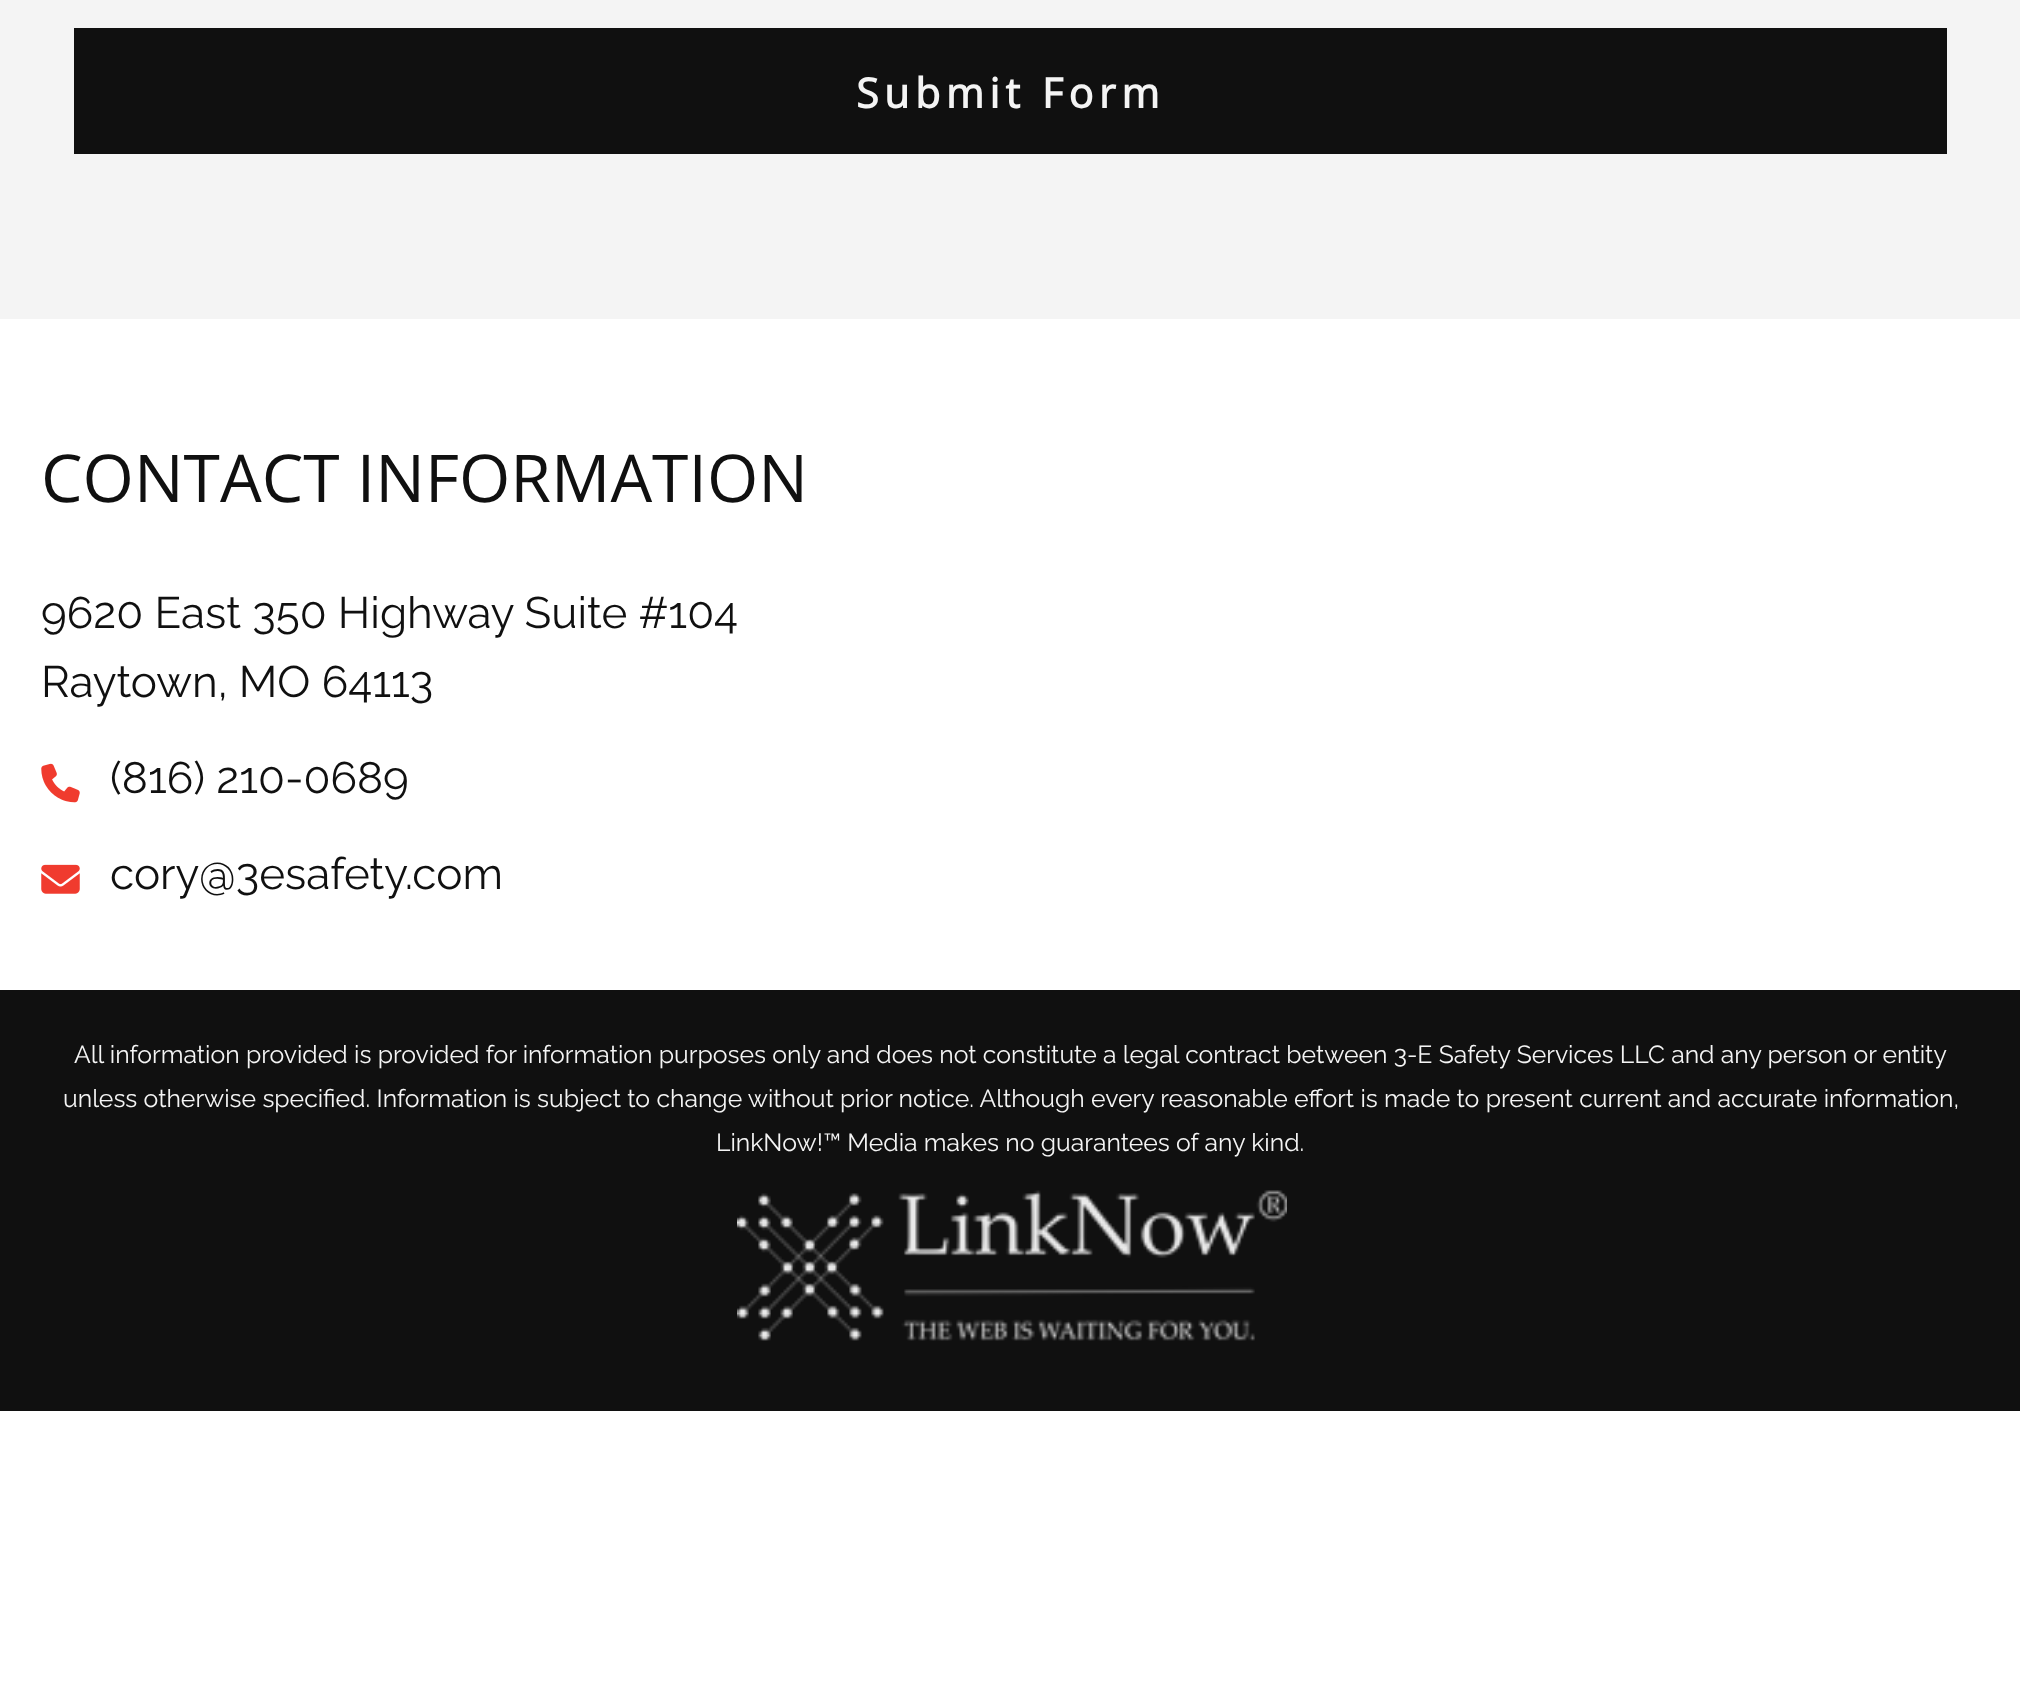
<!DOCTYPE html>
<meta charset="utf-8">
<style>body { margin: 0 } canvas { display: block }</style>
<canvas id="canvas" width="2020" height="1684"></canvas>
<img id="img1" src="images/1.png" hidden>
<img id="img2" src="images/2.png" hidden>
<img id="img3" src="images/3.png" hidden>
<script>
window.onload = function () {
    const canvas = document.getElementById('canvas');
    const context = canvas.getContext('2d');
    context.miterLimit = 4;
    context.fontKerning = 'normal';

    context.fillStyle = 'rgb(255, 255, 255)';
    context.fillRect(0, 0, 2020, 1684);
    context.fillStyle = 'rgb(244, 244, 244)';
    context.fillRect(0, 0, 2020, 319);
    context.fillStyle = 'rgb(16, 16, 16)';
    context.fillRect(74, 28, 1873, 126);
    context.drawImage(document.getElementById('img1'), 41, 763, 39, 40);
    context.drawImage(document.getElementById('img2'), 41, 864, 39, 30);
    context.fillRect(0, 990, 2020, 421);
    context.drawImage(document.getElementById('img3'), 737, 1190, 550, 151);
    context.letterSpacing = '5.5px';
    context.font = 'bold 41.25px Open Sans';
    context.fillStyle = 'rgb(244, 244, 244)';
    context.fillText('Submit Form', 856, 108);
    context.letterSpacing = '0px';
    context.font = '66px Open Sans';
    context.fillStyle = 'rgb(16, 16, 16)';
    context.fillText('CONTACT INFORMATION', 41, 502);
    context.font = '100 44px Raleway';
    context.fillText('9620 East 350 Highway Suite #104', 41, 628);
    context.fillText('Raytown, MO 64113', 41, 697);
    context.fillText('(816) 210-0689', 110, 793);
    context.fillText('cory@3esafety.com', 110, 889);
    context.font = '100 24.75px Raleway';
    context.fillStyle = 'rgb(244, 244, 244)';
    context.fillText('All information provided is provided for information purposes only and does not constitute a legal contract between 3-E Safety Services LLC and any person or entity', 74, 1063);
    context.fillText('unless otherwise specified. Information is subject to change without prior notice. Although every reasonable effort is made to present current and accurate information,', 63, 1107);
    context.fillText('LinkNow!™ Media makes no guarantees of any kind.', 716, 1151);
};
</script>
